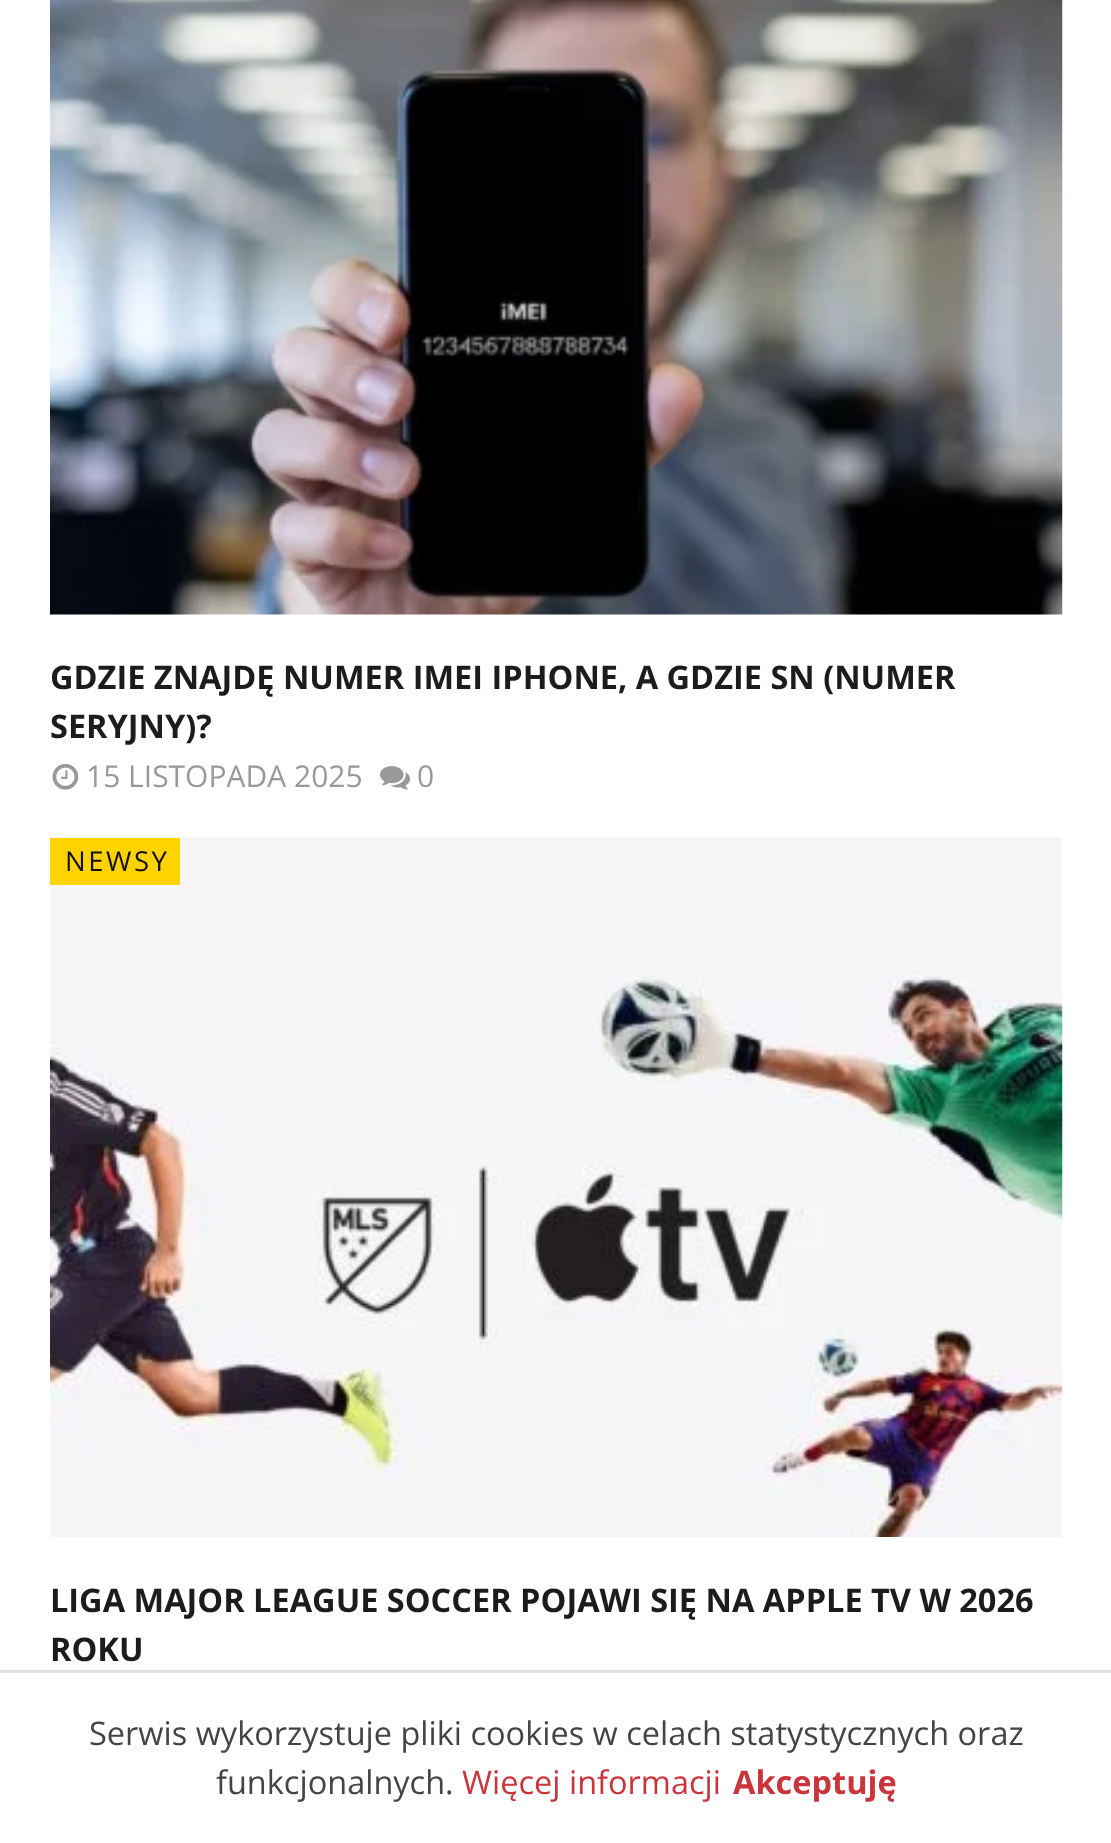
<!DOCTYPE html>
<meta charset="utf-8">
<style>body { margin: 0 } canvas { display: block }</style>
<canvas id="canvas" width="1111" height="1843"></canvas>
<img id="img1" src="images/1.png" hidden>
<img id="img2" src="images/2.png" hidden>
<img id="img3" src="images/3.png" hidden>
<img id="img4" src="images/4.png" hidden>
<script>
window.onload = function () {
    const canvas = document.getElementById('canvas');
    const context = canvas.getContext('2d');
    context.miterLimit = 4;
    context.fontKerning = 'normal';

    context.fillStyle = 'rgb(255, 255, 255)';
    context.fillRect(0, 0, 1111, 1843);
    context.drawImage(document.getElementById('img1'), 50, 0, 1013, 615);
    context.drawImage(document.getElementById('img2'), 52, 763, 27, 27);
    context.drawImage(document.getElementById('img3'), 380, 766, 30, 24);
    context.drawImage(document.getElementById('img4'), 50, 837, 1013, 700);
    context.fillStyle = 'rgb(255, 210, 0)';
    context.fillRect(50, 838, 130, 47);
    context.fillStyle = 'rgb(227, 227, 227)';
    context.fillRect(0, 1670, 1111, 3);
    context.font = 'bold 32.5px Open Sans';
    context.fillStyle = 'rgb(28, 28, 28)';
    context.fillText('GDZIE ZNAJDĘ NUMER IMEI IPHONE, A GDZIE SN (NUMER', 50, 689);
    context.fillText('SERYJNY)?', 50, 738);
    context.font = '30px Open Sans';
    context.fillStyle = 'rgb(153, 153, 153)';
    context.fillText('15 LISTOPADA 2025', 86, 787);
    context.fillText('0', 417, 787);
    context.letterSpacing = '2.5px';
    context.font = '27.5px Open Sans';
    context.fillStyle = 'rgb(17, 17, 17)';
    context.fillText('NEWSY', 65, 871);
    context.letterSpacing = '0px';
    context.font = 'bold 32.5px Open Sans';
    context.fillStyle = 'rgb(28, 28, 28)';
    context.fillText('LIGA MAJOR LEAGUE SOCCER POJAWI SIĘ NA APPLE TV W 2026', 50, 1612);
    context.fillText('ROKU', 50, 1661);
    context.font = '32.5px Open Sans';
    context.fillStyle = 'rgb(68, 68, 68)';
    context.fillText('Serwis wykorzystuje pliki cookies w celach statystycznych oraz', 89, 1745);
    context.fillText('funkcjonalnych.', 216, 1794);
    context.fillStyle = 'rgb(201, 53, 59)';
    context.fillText('Więcej informacji', 462, 1794);
    context.font = 'bold 32.5px Open Sans';
    context.fillText('Akceptuję', 733, 1794);
};
</script>
